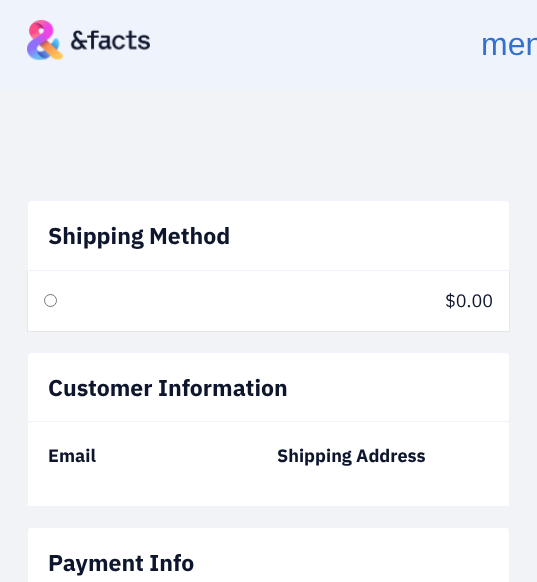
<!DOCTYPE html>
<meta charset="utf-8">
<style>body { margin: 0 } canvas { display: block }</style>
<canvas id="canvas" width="537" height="582"></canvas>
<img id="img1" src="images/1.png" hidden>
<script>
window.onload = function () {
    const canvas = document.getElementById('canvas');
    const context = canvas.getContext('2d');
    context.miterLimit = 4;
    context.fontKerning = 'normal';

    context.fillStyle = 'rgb(241, 243, 246)';
    context.fillRect(0, 0, 537, 582);
    context.fillStyle = 'rgb(239, 243, 251)';
    context.fillRect(0, 0, 537, 90);
    context.drawImage(document.getElementById('img1'), 27, 20, 123, 40);
    context.fillStyle = 'rgb(255, 255, 255)';
    context.beginPath();
    context.roundRect(27.5, 200.5, 482, 70, [3.5, 3.5, 0, 0]);
    context.fill();
    context.strokeStyle = 'rgb(239, 243, 251)';
    context.stroke();
    context.fillStyle = 'rgb(230, 230, 230)';
    context.fillRect(509, 271, 1, 61);
    context.fillRect(27, 271, 1, 61);
    context.fillStyle = 'rgb(255, 255, 255)';
    context.fillRect(28, 271, 481, 60);
    context.fillStyle = 'rgb(230, 230, 230)';
    context.fillRect(28, 331, 481, 1);
    context.beginPath();
    context.arc(50.5, 300.5, 6, 0, 2 * Math.PI);
    context.strokeStyle = 'rgb(118, 118, 118)';
    context.stroke();
    context.fillStyle = 'rgb(255, 255, 255)';
    context.beginPath();
    context.roundRect(27.5, 352.5, 482, 69, [3.5, 3.5, 0, 0]);
    context.fill();
    context.strokeStyle = 'rgb(239, 243, 251)';
    context.stroke();
    context.beginPath();
    context.roundRect(27, 422, 483, 85, [4, 4, 0, 0]);
    context.fill();
    context.fillStyle = 'rgb(239, 243, 251)';
    context.fillRect(509, 424, 1, 83);
    context.fillRect(27, 506, 483, 1);
    context.fillRect(27, 424, 1, 83);
    context.fillStyle = 'rgb(255, 255, 255)';
    context.beginPath();
    context.moveTo(31, 527.5);
    context.lineTo(506, 527.5);
    context.bezierCurveTo(508, 527.5, 509.5, 529, 509.5, 531);
    context.lineTo(509.5, 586.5);
    context.lineTo(27.5, 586.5);
    context.lineTo(27.5, 531);
    context.bezierCurveTo(27.5, 529, 29, 527.5, 31, 527.5);
    context.closePath();
    context.fill();
    context.stroke();
    context.font = '32px Liberation Sans';
    context.fillStyle = 'rgb(51, 113, 207)';
    context.fillText('men', 481, 55);
    context.font = 'bold 23px IBM Plex Sans';
    context.fillStyle = 'rgb(14, 22, 45)';
    context.fillText('Shipping Method', 48, 244);
    context.font = '18px IBM Plex Sans';
    context.fillText('$0.00', 445, 307);
    context.font = 'bold 23px IBM Plex Sans';
    context.fillText('Customer Information', 48, 396);
    context.font = 'bold 18px IBM Plex Sans';
    context.fillText('Email', 48, 462);
    context.fillText('Shipping Address', 277, 462);
    context.font = 'bold 23px IBM Plex Sans';
    context.fillText('Payment Info', 48, 571);
};
</script>
